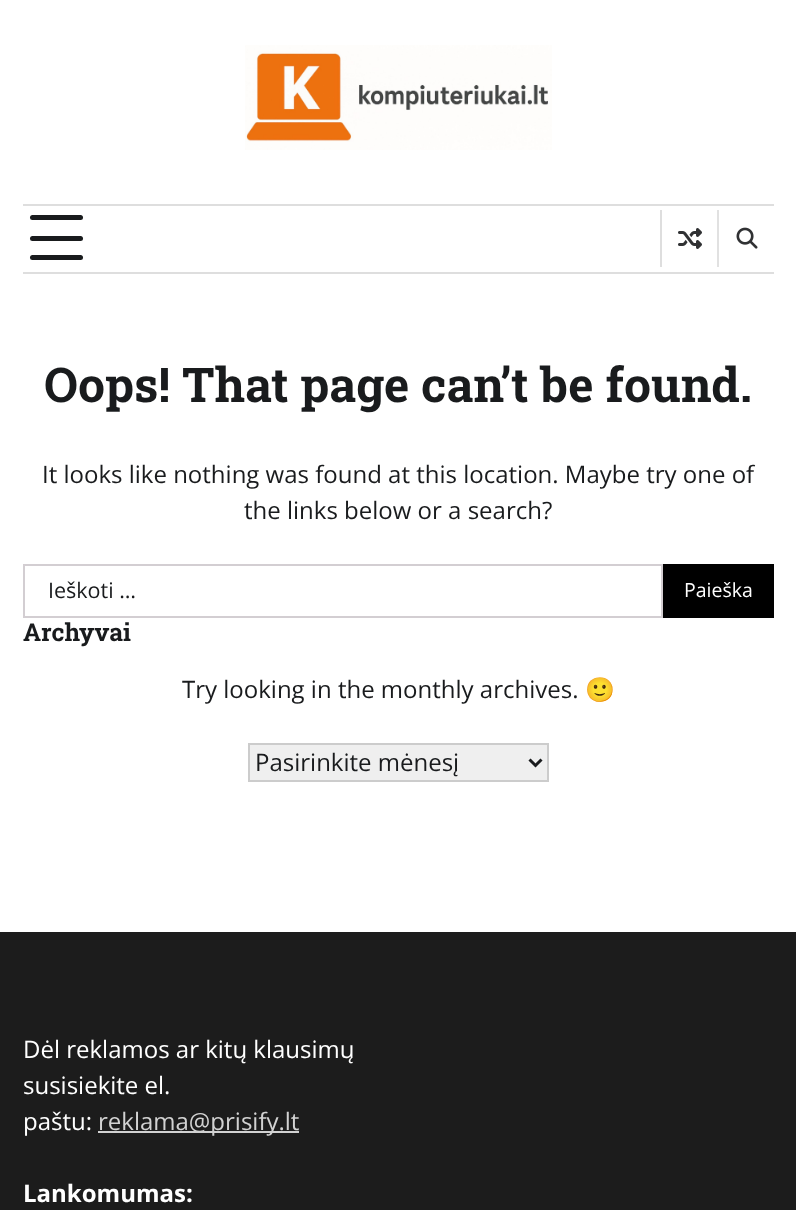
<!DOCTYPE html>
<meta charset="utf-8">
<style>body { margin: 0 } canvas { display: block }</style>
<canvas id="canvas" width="796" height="1210"></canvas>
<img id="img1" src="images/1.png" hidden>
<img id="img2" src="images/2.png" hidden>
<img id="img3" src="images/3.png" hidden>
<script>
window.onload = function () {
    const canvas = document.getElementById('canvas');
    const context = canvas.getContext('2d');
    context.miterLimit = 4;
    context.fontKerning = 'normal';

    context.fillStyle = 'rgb(255, 255, 255)';
    context.fillRect(0, 0, 796, 1210);
    context.drawImage(document.getElementById('img1'), 245, 45, 307, 105);
    context.fillStyle = 'rgb(222, 222, 222)';
    context.fillRect(23, 204, 751, 2);
    context.fillStyle = 'rgb(25, 27, 29)';
    context.beginPath();
    context.roundRect(30, 215, 53, 5, 2.5);
    context.fill();
    context.beginPath();
    context.roundRect(30, 236, 53, 5, 2.5);
    context.fill();
    context.beginPath();
    context.roundRect(30, 255, 53, 5, 2.5);
    context.fill();
    context.fillStyle = 'rgb(222, 222, 222)';
    context.fillRect(660, 210, 2, 57);
    context.drawImage(document.getElementById('img2'), 678, 228, 24, 21);
    context.fillStyle = 'rgb(225, 225, 225)';
    context.fillRect(717, 210, 2, 57);
    context.drawImage(document.getElementById('img3'), 736, 227, 22, 22);
    context.fillStyle = 'rgb(222, 222, 222)';
    context.fillRect(23, 272, 751, 2);
    context.strokeStyle = 'rgb(211, 206, 210)';
    context.lineWidth = 2;
    context.strokeRect(24, 565, 638, 52);
    context.fillStyle = 'rgb(0, 0, 0)';
    context.fillRect(663, 564, 111, 54);
    context.fillStyle = 'rgb(239, 239, 239)';
    context.beginPath();
    context.rect(249, 744, 299, 37);
    context.fill();
    context.strokeStyle = 'rgb(204, 204, 204)';
    context.stroke();
    context.beginPath();
    context.moveTo(529.5, 759.5);
    context.lineTo(535.5, 765.5);
    context.lineTo(541.5, 759.5);
    context.strokeStyle = 'rgb(25, 27, 29)';
    context.lineWidth = 3;
    context.stroke();
    context.fillStyle = 'rgb(28, 28, 28)';
    context.fillRect(0, 932, 796, 278);
    context.fillStyle = 'rgb(210, 210, 210)';
    context.fillRect(98, 1131, 201, 2);
    context.font = 'bold 48px Roboto Slab';
    context.fillStyle = 'rgb(25, 27, 29)';
    context.fillText('Oops! That page can’t be found.', 44, 402);
    context.font = '24px Open Sans';
    context.fillText('It looks like nothing was found at this location. Maybe try one of', 42, 483);
    context.fillText('the links below or a search?', 244, 519);
    context.font = '21.5px Open Sans';
    context.fillText('Ieškoti …', 48, 598);
    context.font = '19.5px Open Sans';
    context.fillStyle = 'rgb(255, 255, 255)';
    context.fillText('Paieška', 684, 597);
    context.font = 'bold 24.5px Roboto Slab';
    context.fillStyle = 'rgb(25, 27, 29)';
    context.fillText('Archyvai', 23, 641);
    context.font = '24px Open Sans';
    context.fillText('Try looking in the monthly archives.', 182, 698);
    context.font = '24px Noto Color Emoji';
    context.fillText('🙂', 585, 698);
    context.font = '24px Open Sans';
    context.fillText('Pasirinkite mėnesį', 255, 771);
    context.fillStyle = 'rgb(255, 255, 255)';
    context.fillText('Dėl reklamos ar kitų klausimų', 23, 1058);
    context.fillText('susisiekite el.', 23, 1094);
    context.fillText('paštu:', 23, 1130);
    context.fillStyle = 'rgb(210, 210, 210)';
    context.fillText('reklama@prisify.lt', 98, 1130);
    context.font = 'bold 24px Open Sans';
    context.fillStyle = 'rgb(255, 255, 255)';
    context.fillText('Lankomumas:', 23, 1202);
};
</script>
